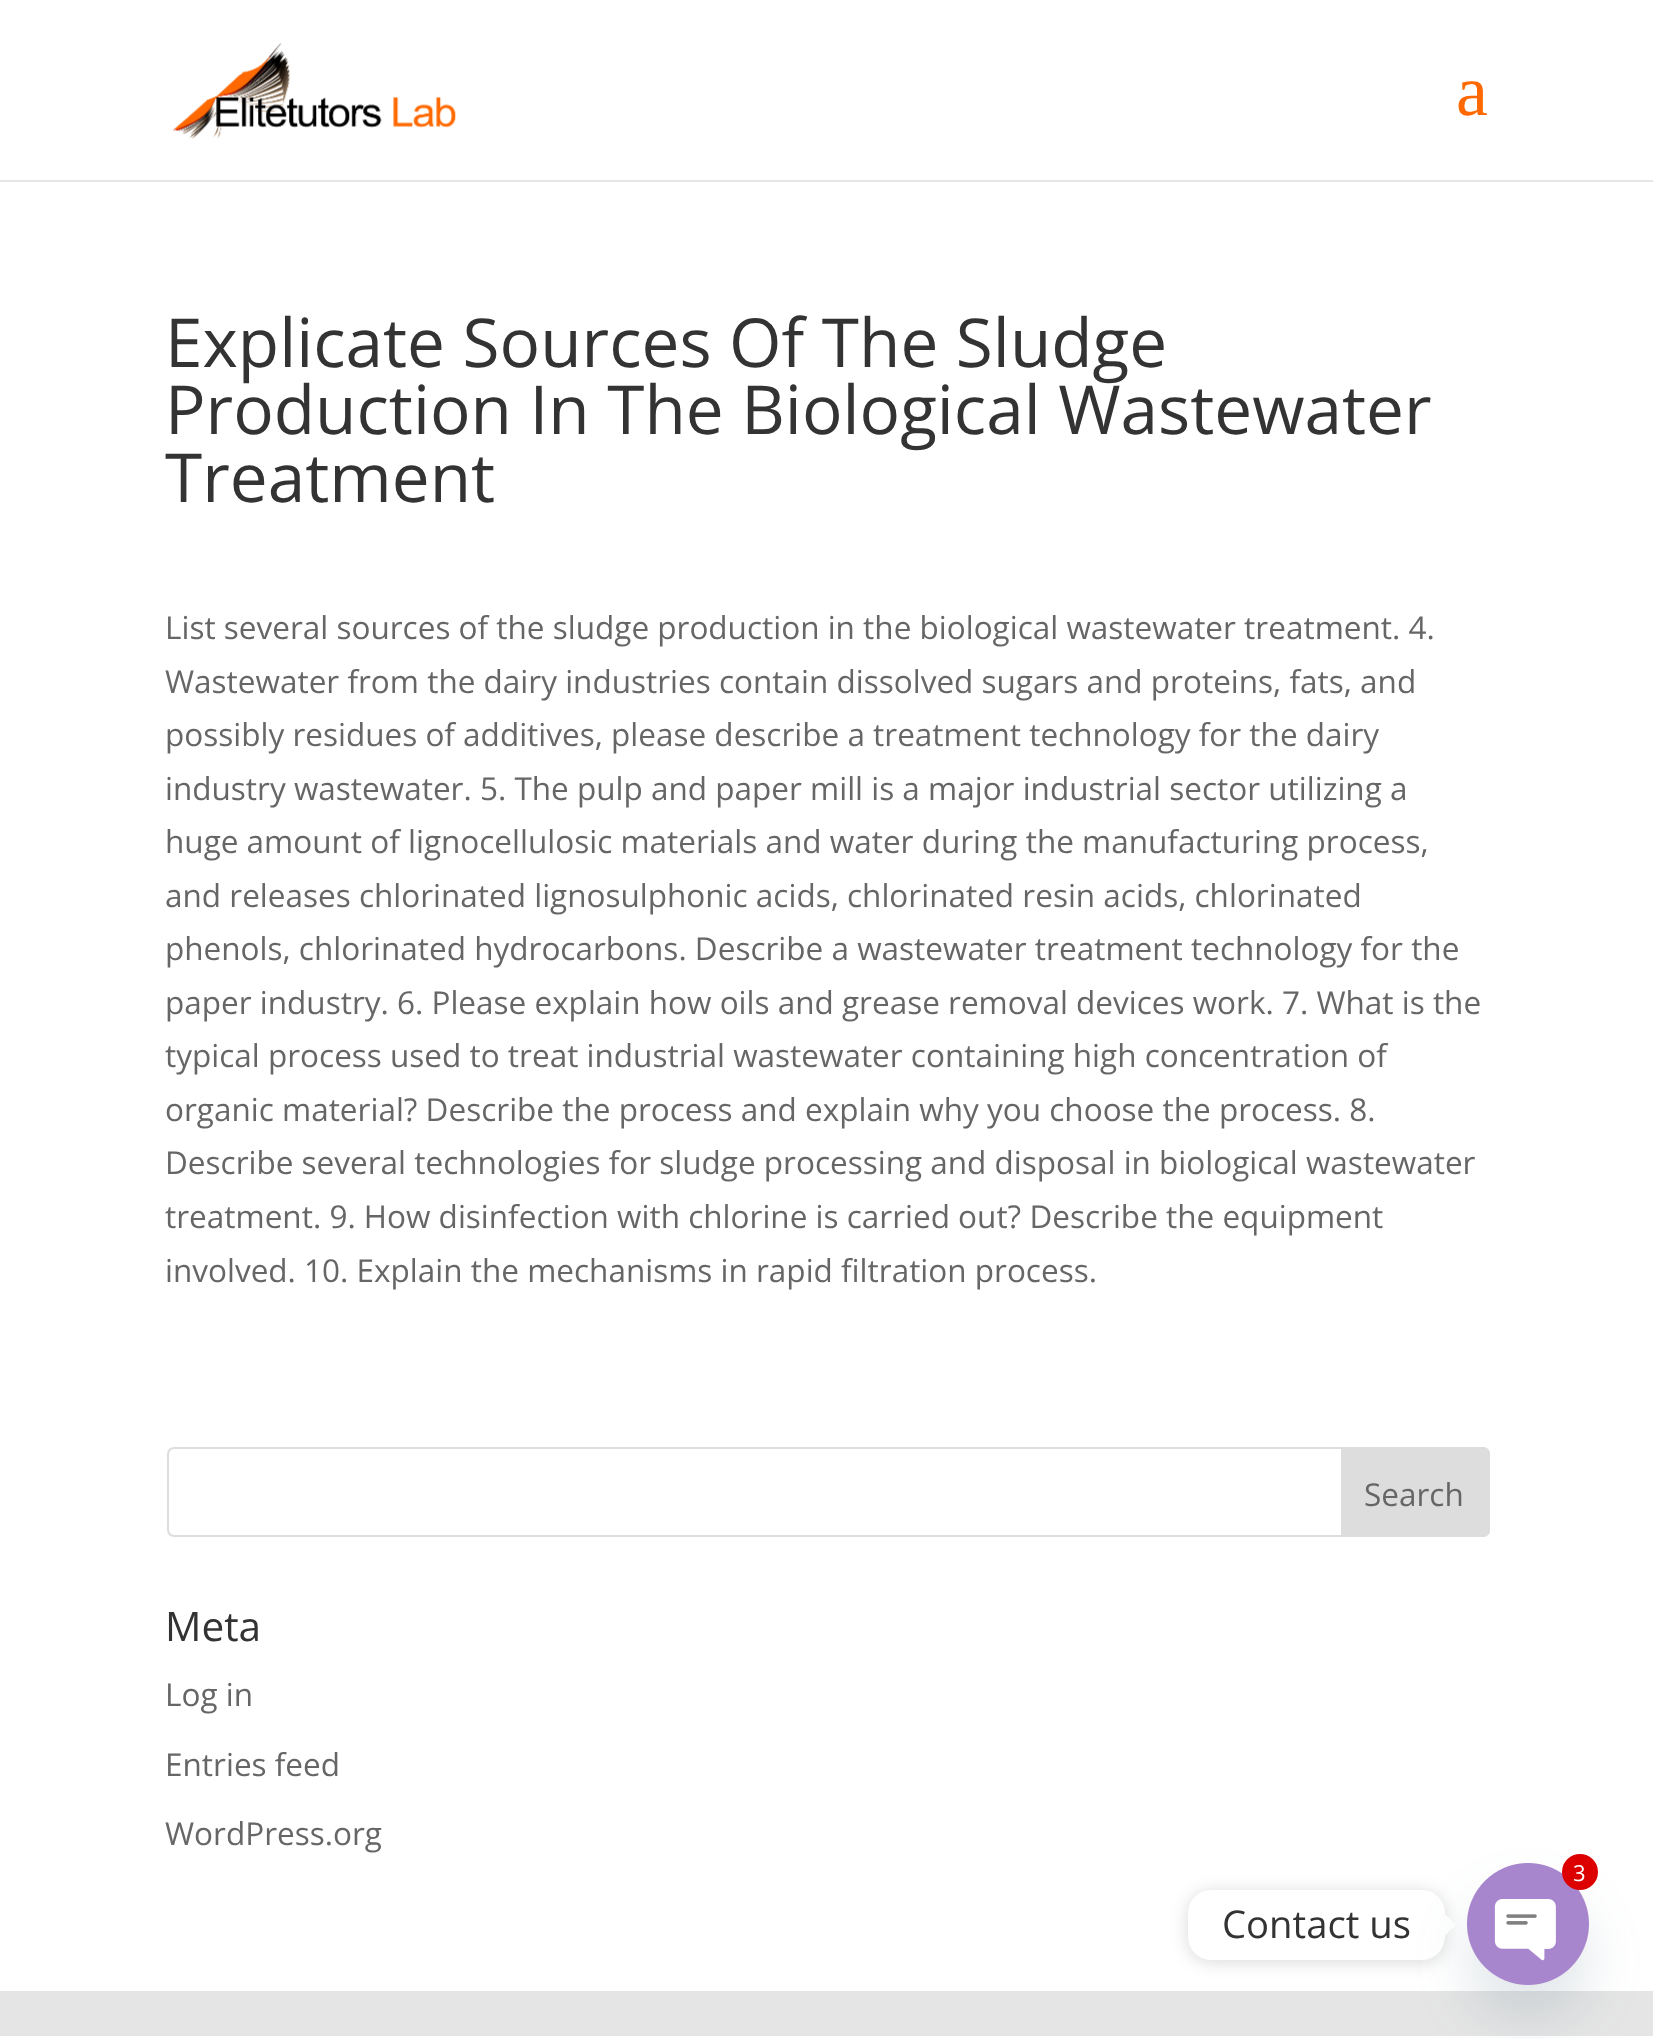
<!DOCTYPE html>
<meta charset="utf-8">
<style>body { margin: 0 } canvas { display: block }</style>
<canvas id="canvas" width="1653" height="2039"></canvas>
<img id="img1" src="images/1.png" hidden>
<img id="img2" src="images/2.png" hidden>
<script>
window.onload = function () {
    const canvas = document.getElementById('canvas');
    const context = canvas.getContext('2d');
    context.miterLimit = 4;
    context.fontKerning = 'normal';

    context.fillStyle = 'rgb(255, 255, 255)';
    context.fillRect(0, 0, 1653, 2039);
    context.fillStyle = 'rgb(230, 230, 230)';
    context.beginPath();
    context.moveTo(0, 180);
    context.lineTo(0, 182);
    context.lineTo(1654, 182);
    context.lineTo(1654, 2);
    context.lineTo(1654, 180);
    context.closePath();
    context.fill();
    context.drawImage(document.getElementById('img1'), 173, 43, 283, 96);
    context.beginPath();
    context.roundRect(168, 1448, 1321, 88, 6);
    context.strokeStyle = 'rgb(221, 221, 221)';
    context.lineWidth = 2;
    context.stroke();
    context.fillStyle = 'rgb(221, 221, 221)';
    context.beginPath();
    context.roundRect(1342, 1448, 147, 88, [0, 6, 6, 0]);
    context.fill();
    context.stroke();
    context.fillStyle = 'rgb(229, 229, 229)';
    context.fillRect(0, 1991, 1653, 45);
    context.fillStyle = 'rgba(0, 0, 0, 0.15)';
    context.filter = 'blur(8.5px)';
    context.beginPath();
    context.roundRect(1188, 1892, 257, 70, 23);
    context.fill();
    context.filter = 'none';
    context.fillStyle = 'rgb(255, 255, 255)';
    context.beginPath();
    context.roundRect(1188, 1890, 257, 70, 23);
    context.fill();
    context.beginPath();
    context.moveTo(1444.5, 1936);
    context.lineTo(1444.5, 1913.5);
    context.lineTo(1456, 1925);
    context.closePath();
    context.fill();
    context.fillStyle = 'rgba(73, 104, 126, 0.16)';
    context.filter = 'blur(27px)';
    context.beginPath();
    context.roundRect(1467, 1899, 122, 122, 61);
    context.fill();
    context.filter = 'none';
    context.drawImage(document.getElementById('img2'), 1467, 1863, 122, 122);
    context.fillStyle = 'rgb(221, 0, 0)';
    context.beginPath();
    context.arc(1580, 1872, 18, 0, 2 * Math.PI);
    context.fill();
    context.font = '72px Liberation Serif';
    context.fillStyle = 'rgb(255, 105, 0)';
    context.fillText('a', 1456, 115);
    context.font = '67.5px Open Sans';
    context.fillStyle = 'rgb(51, 51, 51)';
    context.fillText('Explicate Sources Of The Sludge', 165, 367);
    context.fillText('Production In The Biological Wastewater', 165, 434);
    context.fillText('Treatment', 165, 502);
    context.font = '31.5px Open Sans';
    context.fillStyle = 'rgb(102, 102, 102)';
    context.fillText('List several sources of the sludge production in the biological wastewater treatment. 4.', 165, 639);
    context.fillText('Wastewater from the dairy industries contain dissolved sugars and proteins, fats, and', 165, 693);
    context.fillText('possibly residues of additives, please describe a treatment technology for the dairy', 165, 746);
    context.fillText('industry wastewater. 5. The pulp and paper mill is a major industrial sector utilizing a', 165, 800);
    context.fillText('huge amount of lignocellulosic materials and water during the manufacturing process,', 165, 853);
    context.fillText('and releases chlorinated lignosulphonic acids, chlorinated resin acids, chlorinated', 165, 907);
    context.fillText('phenols, chlorinated hydrocarbons. Describe a wastewater treatment technology for the', 165, 960);
    context.fillText('paper industry. 6. Please explain how oils and grease removal devices work. 7. What is the', 165, 1014);
    context.fillText('typical process used to treat industrial wastewater containing high concentration of', 165, 1067);
    context.fillText('organic material? Describe the process and explain why you choose the process. 8.', 165, 1121);
    context.fillText('Describe several technologies for sludge processing and disposal in biological wastewater', 165, 1174);
    context.fillText('treatment. 9. How disinfection with chlorine is carried out? Describe the equipment', 165, 1228);
    context.fillText('involved. 10. Explain the mechanisms in rapid filtration process.', 165, 1282);
    context.fillText('Search', 1364, 1506);
    context.font = '40.5px Open Sans';
    context.fillStyle = 'rgb(51, 51, 51)';
    context.fillText('Meta', 165, 1641);
    context.font = '31.5px Open Sans';
    context.fillStyle = 'rgb(102, 102, 102)';
    context.fillText('Log in', 165, 1706);
    context.fillText('Entries feed', 165, 1776);
    context.fillText('WordPress.org', 165, 1845);
    context.font = '22px Open Sans';
    context.fillStyle = 'rgb(255, 255, 255)';
    context.fillText('3', 1573, 1881);
    context.font = '38.25px Open Sans';
    context.fillStyle = 'rgb(51, 51, 51)';
    context.fillText('Contact us', 1222, 1938);
};
</script>
